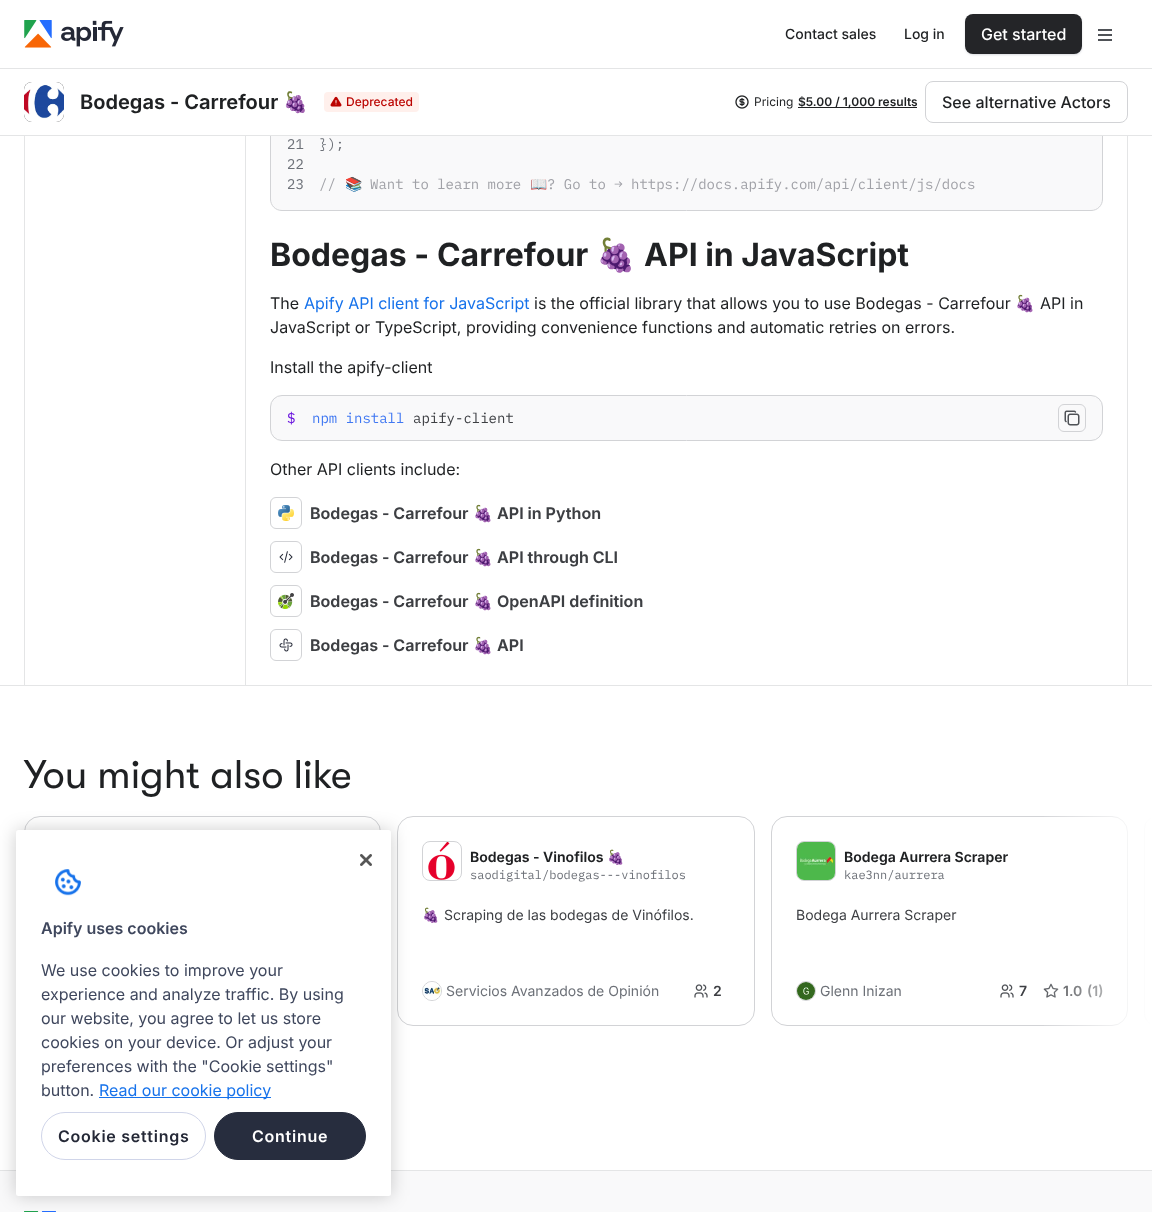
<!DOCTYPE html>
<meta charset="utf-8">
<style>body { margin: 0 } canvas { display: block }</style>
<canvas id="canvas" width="1152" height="1212"></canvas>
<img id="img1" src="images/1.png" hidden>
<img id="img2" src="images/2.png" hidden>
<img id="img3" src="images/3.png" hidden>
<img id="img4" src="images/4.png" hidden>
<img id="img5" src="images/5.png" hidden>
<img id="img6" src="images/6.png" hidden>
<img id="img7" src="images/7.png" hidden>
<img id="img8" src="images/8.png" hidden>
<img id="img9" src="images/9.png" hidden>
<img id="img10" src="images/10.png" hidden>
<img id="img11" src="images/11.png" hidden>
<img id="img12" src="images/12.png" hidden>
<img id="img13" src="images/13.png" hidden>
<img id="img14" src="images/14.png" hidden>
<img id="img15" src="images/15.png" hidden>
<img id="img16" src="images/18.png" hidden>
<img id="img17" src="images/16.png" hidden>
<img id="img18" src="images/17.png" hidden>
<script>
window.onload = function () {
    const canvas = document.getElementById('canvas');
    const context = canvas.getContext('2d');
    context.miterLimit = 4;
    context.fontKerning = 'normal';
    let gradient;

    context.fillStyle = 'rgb(255, 255, 255)';
    context.fillRect(0, 0, 1152, 1212);
    context.fillStyle = 'rgb(249, 249, 250)';
    context.beginPath();
    context.moveTo(270.5, -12.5);
    context.lineTo(1102.5, -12.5);
    context.lineTo(1102.5, 199);
    context.bezierCurveTo(1102.5, 205.5, 1097.5, 210.5, 1091, 210.5);
    context.lineTo(282, 210.5);
    context.bezierCurveTo(275.5, 210.5, 270.5, 205.5, 270.5, 199);
    context.closePath();
    context.fill();
    context.strokeStyle = 'rgb(210, 211, 214)';
    context.stroke();
    context.fillStyle = 'rgb(228, 229, 230)';
    context.fillRect(0, 68, 1152, 1);
    context.fillStyle = 'rgb(255, 255, 255)';
    context.fillRect(270, 0, 833, 68);
    context.drawImage(document.getElementById('img1'), 24, 20, 100, 28);
    context.fillStyle = 'rgba(63, 71, 93, 0.15)';
    context.filter = 'blur(1px)';
    context.beginPath();
    context.roundRect(965, 15, 117, 40, 8);
    context.fill();
    context.filter = 'none';
    context.fillStyle = 'rgba(63, 71, 93, 0.14)';
    context.filter = 'blur(0.5px)';
    context.beginPath();
    context.roundRect(967, 16, 114, 38, 7);
    context.fill();
    context.filter = 'none';
    context.fillStyle = 'rgba(63, 71, 93, 0.13)';
    context.filter = 'blur(1px)';
    context.beginPath();
    context.roundRect(969, 19, 112, 35, 6);
    context.fill();
    context.filter = 'none';
    context.fillStyle = 'rgb(36, 37, 40)';
    context.beginPath();
    context.roundRect(965, 14, 117, 40, 8);
    context.fill();
    context.fillStyle = 'rgb(79, 82, 87)';
    context.fillRect(1098, 29, 14, 2);
    context.fillRect(1098, 34, 14, 2);
    context.fillRect(1098, 39, 14, 2);
    context.fillStyle = 'rgb(255, 255, 255)';
    context.fillRect(270, 69, 833, 66);
    context.fillStyle = 'rgb(228, 229, 230)';
    context.fillRect(0, 135, 1152, 1);
    context.fillStyle = 'rgb(26, 27, 33)';
    context.beginPath();
    context.roundRect(24, 82, 40, 40, 8);
    context.fill();
    context.drawImage(document.getElementById('img2'), 24, 82, 40, 40);
    context.fillStyle = 'rgb(255, 240, 236)';
    context.beginPath();
    context.roundRect(324, 92, 95, 20, 4);
    context.fill();
    context.drawImage(document.getElementById('img3'), 330, 96, 12, 11);
    context.drawImage(document.getElementById('img4'), 735, 95, 14, 14);
    context.fillStyle = 'rgb(31, 33, 35)';
    context.fillRect(798, 107, 119, 1);
    context.beginPath();
    context.roundRect(925.5, 81.5, 202, 41, 7.5);
    context.stroke();
    context.fillStyle = 'rgb(228, 229, 230)';
    context.fillRect(1127, 136, 1, 549);
    context.fillRect(24, 136, 1, 549);
    context.fillRect(245, 136, 1, 549);
    context.fillStyle = 'rgb(249, 249, 250)';
    context.beginPath();
    context.roundRect(270.5, 395.5, 832, 45, 11.5);
    context.fill();
    context.stroke();
    context.beginPath();
    context.roundRect(1058.5, 404.5, 27, 27, 5.5);
    context.stroke();
    context.drawImage(document.getElementById('img5'), 1064, 410, 16, 16);
    context.beginPath();
    context.roundRect(270.5, 497.5, 31, 31, 5.5);
    context.stroke();
    context.drawImage(document.getElementById('img6'), 278, 505, 16, 16);
    context.beginPath();
    context.roundRect(270.5, 541.5, 31, 31, 5.5);
    context.stroke();
    context.drawImage(document.getElementById('img7'), 279, 551, 14, 12);
    context.beginPath();
    context.roundRect(270.5, 585.5, 31, 31, 5.5);
    context.stroke();
    context.drawImage(document.getElementById('img8'), 278, 593, 16, 16);
    context.beginPath();
    context.roundRect(270.5, 629.5, 31, 31, 5.5);
    context.stroke();
    context.drawImage(document.getElementById('img9'), 279, 638, 14, 14);
    context.fillStyle = 'rgb(228, 229, 230)';
    context.fillRect(0, 685, 1152, 1);
    context.beginPath();
    context.roundRect(24.5, 816.5, 356, 209, 15.5);
    context.stroke();
    context.beginPath();
    context.roundRect(397.5, 816.5, 357, 209, 15.5);
    context.stroke();
    context.beginPath();
    context.roundRect(422.5, 841.5, 39, 39, 7.5);
    context.stroke();
    context.drawImage(document.getElementById('img10'), 428, 842, 27, 38);
    context.beginPath();
    context.arc(432, 991, 9.5, 0, 2 * Math.PI);
    context.stroke();
    context.drawImage(document.getElementById('img11'), 423, 982, 18, 18);
    context.drawImage(document.getElementById('img12'), 694, 984, 14, 14);
    context.beginPath();
    context.roundRect(771.5, 816.5, 356, 209, 15.5);
    context.stroke();
    context.beginPath();
    context.roundRect(796.5, 841.5, 39, 39, 7.5);
    context.stroke();
    context.drawImage(document.getElementById('img13'), 797, 842, 38, 38);
    context.beginPath();
    context.arc(806, 991, 9.5, 0, 2 * Math.PI);
    context.stroke();
    context.drawImage(document.getElementById('img14'), 797, 982, 18, 18);
    context.drawImage(document.getElementById('img12'), 1000, 984, 14, 14);
    context.drawImage(document.getElementById('img15'), 1043, 983, 16, 15);
    context.beginPath();
    context.roundRect(1144.5, 816.5, 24, 209, 15.5);
    context.stroke();
    context.fillStyle = 'rgb(249, 249, 250)';
    context.fillRect(0, 1171, 1152, 41);
    context.fillStyle = 'rgb(228, 229, 230)';
    context.fillRect(0, 1170, 1152, 1);
    context.drawImage(document.getElementById('img16'), 24, 1211, 32, 1);
    context.fillStyle = 'rgba(0, 0, 0, 0.2)';
    context.filter = 'blur(9px)';
    context.beginPath();
    context.roundRect(16, 830, 375, 366, 2.5);
    context.fill();
    context.filter = 'none';
    context.fillStyle = 'rgb(255, 255, 255)';
    context.beginPath();
    context.roundRect(16, 830, 375, 366, 2.5);
    context.fill();
    context.drawImage(document.getElementById('img17'), 360, 854, 12, 12);
    context.drawImage(document.getElementById('img18'), 55, 869, 26, 27);
    context.fillStyle = 'rgb(22, 114, 235)';
    context.fillRect(99, 1097, 172, 1);
    context.beginPath();
    context.roundRect(41.5, 1112.5, 164, 47, 23.5);
    context.strokeStyle = 'rgb(208, 213, 233)';
    context.stroke();
    context.fillStyle = 'rgb(39, 45, 62)';
    context.beginPath();
    context.roundRect(214.5, 1112.5, 151, 47, 23.5);
    context.fill();
    context.strokeStyle = 'rgb(39, 45, 62)';
    context.stroke();
    context.font = '500 14px Inter';
    context.fillStyle = 'rgb(31, 33, 35)';
    context.fillText('Contact sales', 785, 39);
    context.fillText('Log in', 904, 39);
    context.font = '500 16px Inter';
    context.fillStyle = 'rgb(255, 255, 255)';
    context.fillText('Get started', 981, 40);
    context.font = '600 20px Inter';
    context.fillStyle = 'rgb(31, 33, 35)';
    context.fillText('Bodegas - Carrefour', 80, 109);
    context.font = 'bold 20px Noto Color Emoji';
    context.fillText('🍇', 283, 109);
    context.font = '500 12px Inter';
    context.fillStyle = 'rgb(187, 4, 1)';
    context.fillText('Deprecated', 346, 106);
    context.font = '12px Inter';
    context.fillStyle = 'rgb(31, 33, 35)';
    context.fillText('Pricing', 754, 106);
    context.font = '600 12px "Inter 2"';
    context.fillText('$5.00 / 1,000 results', 798, 106);
    context.font = '500 16px Inter';
    context.fillText('See alternative Actors', 942, 108);
    context.font = '14px IBM Plex Mono';
    context.fillStyle = 'rgb(109, 113, 120)';
    context.fillText('21', 287, 149);
    context.fillText('});', 319, 149);
    context.fillText('22', 287, 169);
    context.fillText('23', 287, 189);
    context.fillStyle = 'rgb(160, 161, 167)';
    context.fillText('//', 319, 189);
    context.font = '14px Noto Color Emoji';
    context.fillText('📚', 345, 189);
    context.font = '14px IBM Plex Mono';
    context.fillText('Want to learn more', 370, 189);
    context.font = '14px Noto Color Emoji';
    context.fillText('📖', 530, 189);
    context.font = '14px IBM Plex Mono';
    context.fillText('? Go to → https://docs.apify.com/api/client/js/docs', 547, 189);
    context.font = 'bold 32px Inter';
    context.fillStyle = 'rgb(31, 33, 35)';
    context.fillText('Bodegas - Carrefour', 270, 266);
    context.font = 'bold 32px Noto Color Emoji';
    context.fillText('🍇', 596, 266);
    context.font = 'bold 32px Inter';
    context.fillText('API in JavaScript', 644, 266);
    context.font = '16px Inter';
    context.fillText('The', 270, 309);
    context.fillStyle = 'rgb(22, 114, 235)';
    context.fillText('Apify API client for JavaScript', 304, 309);
    context.fillStyle = 'rgb(31, 33, 35)';
    context.fillText('is the official library that allows you to use Bodegas - Carrefour', 534, 309);
    context.font = '16px Noto Color Emoji';
    context.fillText('🍇', 1015, 309);
    context.font = '16px Inter';
    context.fillText('API in', 1040, 309);
    context.fillText('JavaScript or TypeScript, providing convenience functions and automatic retries on errors.', 270, 333);
    context.fillText('Install the apify-client', 270, 373);
    context.font = '14px IBM Plex Mono';
    context.fillStyle = 'rgb(106, 20, 222)';
    context.fillText('$', 287, 423);
    context.fillStyle = 'rgb(64, 120, 242)';
    context.fillText('npm install', 312, 423);
    context.fillStyle = 'rgb(61, 63, 67)';
    context.fillText('apify-client', 413, 423);
    context.font = '16px Inter';
    context.fillStyle = 'rgb(31, 33, 35)';
    context.fillText('Other API clients include:', 270, 475);
    context.font = '600 16px Inter';
    context.fillStyle = 'rgb(61, 63, 67)';
    context.fillText('Bodegas - Carrefour', 310, 519);
    context.font = 'bold 16px Noto Color Emoji';
    context.fillText('🍇', 473, 519);
    context.font = '600 16px Inter';
    context.fillText('API in Python', 497, 519);
    context.fillText('Bodegas - Carrefour', 310, 563);
    context.font = 'bold 16px Noto Color Emoji';
    context.fillText('🍇', 473, 563);
    context.font = '600 16px Inter';
    context.fillText('API through CLI', 497, 563);
    context.fillText('Bodegas - Carrefour', 310, 607);
    context.font = 'bold 16px Noto Color Emoji';
    context.fillText('🍇', 473, 607);
    context.font = '600 16px Inter';
    context.fillText('OpenAPI definition', 497, 607);
    context.fillText('Bodegas - Carrefour', 310, 651);
    context.font = 'bold 16px Noto Color Emoji';
    context.fillText('🍇', 473, 651);
    context.font = '600 16px Inter';
    context.fillText('API', 497, 651);
    context.font = '40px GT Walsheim';
    context.fillStyle = 'rgb(31, 33, 35)';
    context.fillText('You might also like', 24, 788);
    context.font = '600 14px Inter';
    context.fillText('Bodegas - Vinofilos', 470, 862);
    context.font = 'bold 14px Noto Color Emoji';
    context.fillText('🍇', 607, 862);
    context.font = '12px IBM Plex Mono';
    context.fillStyle = 'rgb(109, 113, 120)';
    context.fillText('saodigital/bodegas---vinofilos', 470, 879);
    context.font = '14px Noto Color Emoji';
    context.fillStyle = 'rgb(61, 63, 67)';
    context.fillText('🍇', 422, 920);
    context.font = '14px Inter';
    context.fillText('Scraping de las bodegas de Vinófilos.', 444, 920);
    context.fillStyle = 'rgb(109, 113, 120)';
    context.fillText('Servicios Avanzados de Opinión', 446, 996);
    context.font = '600 14px "Inter 2"';
    context.fillStyle = 'rgb(61, 63, 67)';
    context.fillText('2', 713, 996);
    context.font = '600 14px Inter';
    context.fillStyle = 'rgb(31, 33, 35)';
    context.fillText('Bodega Aurrera Scraper', 844, 862);
    context.font = '12px IBM Plex Mono';
    context.fillStyle = 'rgb(109, 113, 120)';
    context.fillText('kae3nn/aurrera', 844, 879);
    context.font = '14px Inter';
    context.fillStyle = 'rgb(61, 63, 67)';
    context.fillText('Bodega Aurrera Scraper', 796, 920);
    context.fillStyle = 'rgb(109, 113, 120)';
    context.fillText('Glenn Inizan', 820, 996);
    context.font = '600 14px "Inter 2"';
    context.fillStyle = 'rgb(61, 63, 67)';
    context.fillText('7', 1019, 996);
    context.fillText('1.0', 1063, 996);
    context.fillText('(1)', 1087, 996);
    gradient = context.createLinearGradient(1037, 929, 1152, 929);
    gradient.addColorStop(0, 'rgba(255, 255, 255, 0)');
    gradient.addColorStop(1, 'rgb(255, 255, 255)');
    context.fillStyle = gradient;
    context.fillRect(1044, 816, 108, 210);
    context.font = '600 16px "Inter 2"';
    context.fillStyle = 'rgb(63, 71, 93)';
    context.fillText('Apify uses cookies', 41, 934);
    context.font = '16px Inter';
    context.fillText('We use cookies to improve your', 41, 976);
    context.fillText('experience and analyze traffic. By using', 41, 1000);
    context.fillText('our website, you agree to let us store', 41, 1024);
    context.fillText('cookies on your device. Or adjust your', 41, 1048);
    context.fillText('preferences with the "Cookie settings"', 41, 1072);
    context.fillText('button.', 41, 1096);
    context.fillStyle = 'rgb(22, 114, 235)';
    context.fillText('Read our cookie policy', 99, 1096);
    context.letterSpacing = '0.75px';
    context.font = '600 16px "Inter 2"';
    context.fillStyle = 'rgb(36, 40, 54)';
    context.fillText('Cookie settings', 58, 1142);
    context.fillStyle = 'rgb(255, 255, 255)';
    context.fillText('Continue', 252, 1142);
};
</script>
